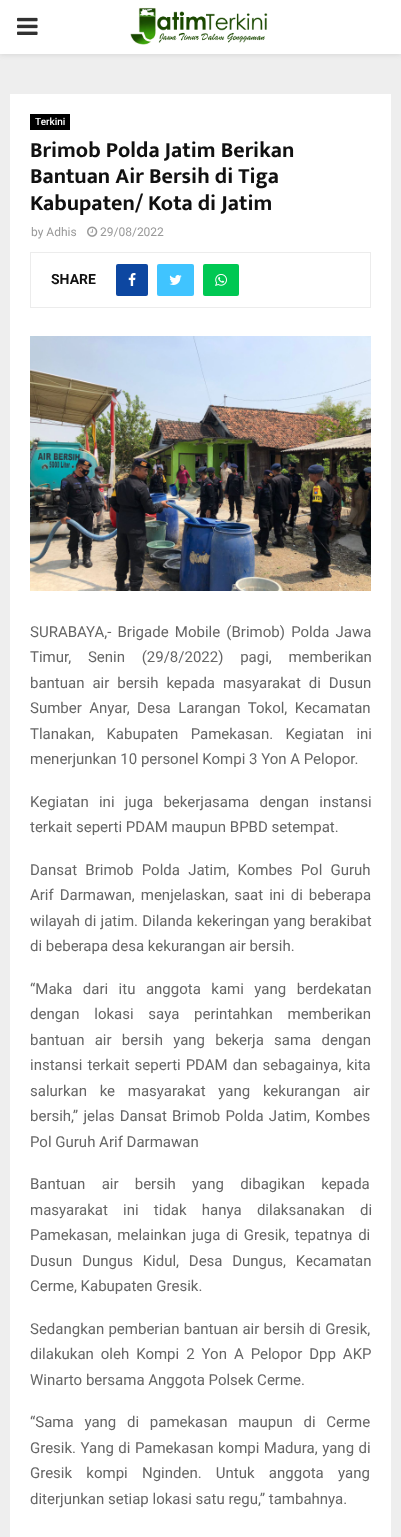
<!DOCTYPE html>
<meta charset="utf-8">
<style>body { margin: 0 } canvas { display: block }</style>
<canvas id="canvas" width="401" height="1537"></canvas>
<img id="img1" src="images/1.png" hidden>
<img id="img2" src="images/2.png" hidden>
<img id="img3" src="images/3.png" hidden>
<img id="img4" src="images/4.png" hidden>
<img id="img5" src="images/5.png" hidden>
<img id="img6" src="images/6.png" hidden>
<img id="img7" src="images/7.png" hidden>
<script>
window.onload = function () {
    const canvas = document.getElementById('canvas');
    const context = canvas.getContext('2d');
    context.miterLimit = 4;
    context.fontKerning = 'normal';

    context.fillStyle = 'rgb(238, 238, 238)';
    context.fillRect(0, 0, 401, 1537);
    context.fillStyle = 'rgba(190, 190, 190, 0.46)';
    context.filter = 'blur(2.5px)';
    context.beginPath();
    context.rect(0, 1, 401, 54);
    context.fill();
    context.filter = 'none';
    context.fillStyle = 'rgb(255, 255, 255)';
    context.fillRect(0, 0, 401, 54);
    context.drawImage(document.getElementById('img1'), 17, 17, 21, 18);
    context.drawImage(document.getElementById('img2'), 130, 7, 138, 38);
    context.fillRect(10, 94, 381, 1443);
    context.fillStyle = 'rgb(0, 0, 0)';
    context.fillRect(30, 114, 40, 16);
    context.drawImage(document.getElementById('img3'), 87, 226, 11, 11);
    context.strokeStyle = 'rgb(236, 236, 236)';
    context.strokeRect(30.5, 252.5, 340, 55);
    context.fillStyle = 'rgb(13, 71, 161)';
    context.beginPath();
    context.roundRect(116, 264, 32, 32, 2);
    context.fill();
    context.drawImage(document.getElementById('img4'), 128, 273, 8, 13);
    context.fillStyle = 'rgb(64, 196, 255)';
    context.beginPath();
    context.roundRect(157, 264, 37, 32, 2);
    context.fill();
    context.drawImage(document.getElementById('img5'), 169, 275, 13, 10);
    context.fillStyle = 'rgb(0, 200, 83)';
    context.beginPath();
    context.roundRect(203, 264, 36, 32, 2);
    context.fill();
    context.drawImage(document.getElementById('img6'), 215, 274, 12, 12);
    context.drawImage(document.getElementById('img7'), 30, 336, 341, 255);
    context.font = '500 10px Roboto';
    context.fillStyle = 'rgb(255, 255, 255)';
    context.fillText('Terkini', 35, 125);
    context.font = 'bold 22px Mukta Vaani';
    context.fillStyle = 'rgb(17, 17, 17)';
    context.fillText('Brimob Polda Jatim Berikan', 30, 157);
    context.fillText('Bantuan Air Bersih di Tiga', 30, 183);
    context.fillText('Kabupaten/ Kota di Jatim', 30, 210);
    context.font = '12px Roboto';
    context.fillStyle = 'rgb(153, 153, 153)';
    context.fillText('by Adhis', 31, 236);
    context.fillText('29/08/2022', 100, 236);
    context.font = 'bold 14px Roboto';
    context.fillStyle = 'rgb(17, 17, 17)';
    context.fillText('SHARE', 51, 284);
    context.wordSpacing = '2.5px';
    context.font = '15px Roboto';
    context.fillStyle = 'rgb(102, 102, 102)';
    context.fillText('SURABAYA,- Brigade Mobile (Brimob) Polda Jawa', 30, 637);
    context.wordSpacing = '13px';
    context.fillText('Timur, Senin (29/8/2022) pagi, memberikan', 30, 662);
    context.wordSpacing = '4.25px';
    context.fillText('bantuan air bersih kepada masyarakat di Dusun', 30, 688);
    context.wordSpacing = '3.75px';
    context.fillText('Sumber Anyar, Desa Larangan Tokol, Kecamatan', 30, 713);
    context.wordSpacing = '8.5px';
    context.fillText('Tlanakan, Kabupaten Pamekasan. Kegiatan ini', 30, 739);
    context.wordSpacing = '0px';
    context.fillText('menerjunkan 10 personel Kompi 3 Yon A Pelopor.', 30, 764);
    context.wordSpacing = '6.5px';
    context.fillText('Kegiatan ini juga bekerjasama dengan instansi', 30, 807);
    context.wordSpacing = '0px';
    context.fillText('terkait seperti PDAM maupun BPBD setempat.', 30, 832);
    context.wordSpacing = '4.5px';
    context.fillText('Dansat Brimob Polda Jatim, Kombes Pol Guruh', 30, 875);
    context.wordSpacing = '2.25px';
    context.fillText('Arif Darmawan, menjelaskan, saat ini di beberapa', 30, 900);
    context.wordSpacing = '0.5px';
    context.fillText('wilayah di jatim. Dilanda kekeringan yang berakibat', 30, 926);
    context.wordSpacing = '0px';
    context.fillText('di beberapa desa kekurangan air bersih.', 30, 951);
    context.wordSpacing = '6.75px';
    context.fillText('“Maka dari itu anggota kami yang berdekatan', 30, 994);
    context.wordSpacing = '11px';
    context.fillText('dengan lokasi saya perintahkan memberikan', 30, 1019);
    context.wordSpacing = '6.5px';
    context.fillText('bantuan air bersih yang bekerja sama dengan', 30, 1045);
    context.wordSpacing = '1.25px';
    context.fillText('instansi terkait seperti PDAM dan sebagainya, kita', 30, 1070);
    context.wordSpacing = '9px';
    context.fillText('salurkan ke masyarakat yang kekurangan air', 30, 1096);
    context.wordSpacing = '1.5px';
    context.fillText('bersih,” jelas Dansat Brimob Polda Jatim, Kombes', 30, 1121);
    context.wordSpacing = '0px';
    context.fillText('Pol Guruh Arif Darmawan', 30, 1147);
    context.wordSpacing = '12.5px';
    context.fillText('Bantuan air bersih yang dibagikan kepada', 30, 1189);
    context.wordSpacing = '11.5px';
    context.fillText('masyarakat ini tidak hanya dilaksanakan di', 30, 1215);
    context.wordSpacing = '2px';
    context.fillText('Pamekasan, melainkan juga di Gresik, tepatnya di', 30, 1240);
    context.wordSpacing = '6px';
    context.fillText('Dusun Dungus Kidul, Desa Dungus, Kecamatan', 30, 1266);
    context.wordSpacing = '0px';
    context.fillText('Cerme, Kabupaten Gresik.', 30, 1291);
    context.wordSpacing = '0.5px';
    context.fillText('Sedangkan pemberian bantuan air bersih di Gresik,', 30, 1334);
    context.wordSpacing = '3.25px';
    context.fillText('dilakukan oleh Kompi 2 Yon A Pelopor Dpp AKP', 30, 1359);
    context.wordSpacing = '0px';
    context.fillText('Winarto bersama Anggota Polsek Cerme.', 30, 1385);
    context.wordSpacing = '7px';
    context.fillText('“Sama yang di pamekasan maupun di Cerme', 30, 1427);
    context.wordSpacing = '0.75px';
    context.fillText('Gresik. Yang di Pamekasan kompi Madura, yang di', 30, 1453);
    context.wordSpacing = '10.5px';
    context.fillText('Gresik kompi Nginden. Untuk anggota yang', 30, 1478);
    context.wordSpacing = '0px';
    context.fillText('diterjunkan setiap lokasi satu regu,” tambahnya.', 30, 1504);
};
</script>
